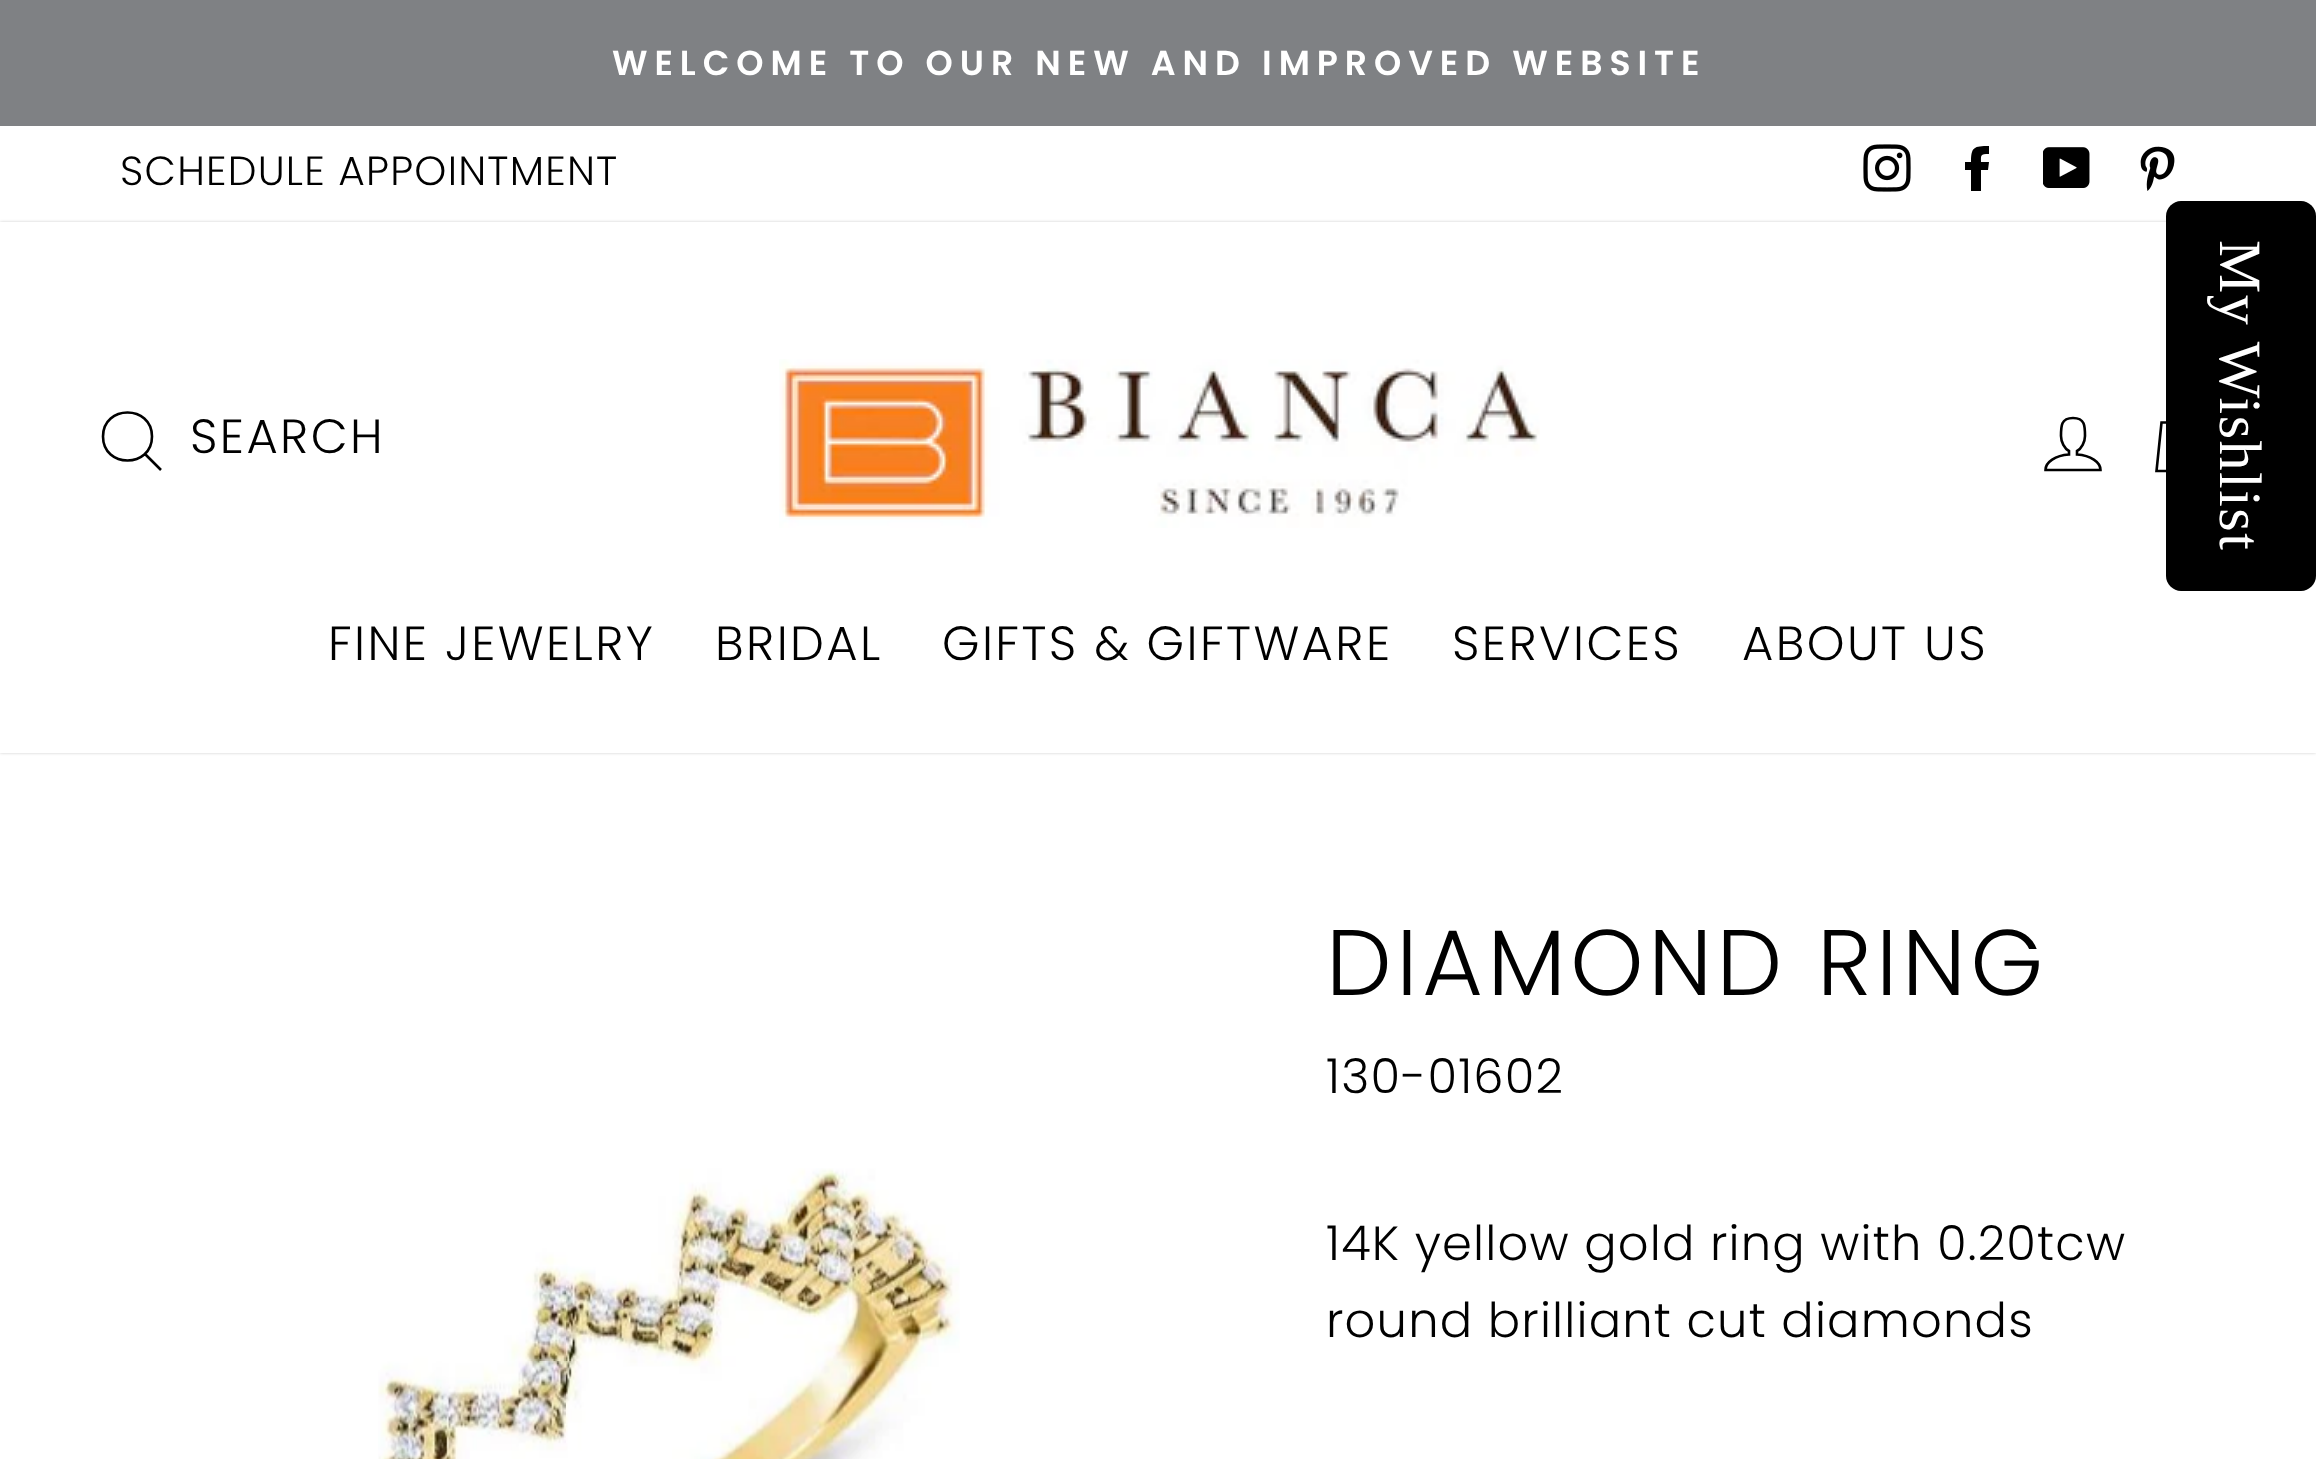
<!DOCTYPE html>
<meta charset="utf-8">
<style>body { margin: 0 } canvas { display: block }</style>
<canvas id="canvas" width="2316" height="1459"></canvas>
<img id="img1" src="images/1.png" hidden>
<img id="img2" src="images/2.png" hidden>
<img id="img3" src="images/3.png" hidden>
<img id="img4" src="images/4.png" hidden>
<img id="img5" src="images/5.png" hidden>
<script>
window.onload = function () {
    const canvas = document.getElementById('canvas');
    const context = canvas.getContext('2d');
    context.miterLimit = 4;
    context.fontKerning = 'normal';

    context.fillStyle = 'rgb(255, 255, 255)';
    context.fillRect(0, 0, 2316, 1459);
    context.fillStyle = 'rgb(127, 129, 132)';
    context.fillRect(0, 0, 2316, 126);
    context.drawImage(document.getElementById('img1'), 1863, 144, 48, 48);
    context.fillStyle = 'rgb(0, 0, 0)';
    context.beginPath();
    context.moveTo(1981, 191);
    context.lineTo(1981, 170);
    context.lineTo(1988, 170);
    context.lineTo(1989, 162);
    context.lineTo(1981, 162);
    context.bezierCurveTo(1981, 155, 1980, 154, 1989, 154);
    context.lineTo(1989, 146);
    context.bezierCurveTo(1974, 146, 1971, 147, 1971, 162);
    context.lineTo(1965, 162);
    context.lineTo(1965, 170);
    context.lineTo(1971, 170);
    context.lineTo(1971, 191);
    context.closePath();
    context.fill();
    context.drawImage(document.getElementById('img2'), 2043, 147, 47, 41);
    context.drawImage(document.getElementById('img3'), 2140, 146, 35, 45);
    context.save();
    context.beginPath();
    context.moveTo(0, 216);
    context.lineTo(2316, 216);
    context.lineTo(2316, 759);
    context.lineTo(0, 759);
    context.closePath();
    context.moveTo(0, 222);
    context.lineTo(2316, 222);
    context.lineTo(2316, 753);
    context.lineTo(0, 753);
    context.closePath();
    context.clip('evenodd');
    context.fillStyle = 'rgba(0, 0, 0, 0.2)';
    context.filter = 'blur(1.5px)';
    context.beginPath();
    context.rect(0, 222, 2316, 531);
    context.fill();
    context.filter = 'none';
    context.restore();
    context.beginPath();
    context.moveTo(152, 436.5);
    context.bezierCurveTo(152, 468.5, 103, 468.5, 103, 436.5);
    context.bezierCurveTo(103, 404.5, 152, 404.5, 152, 436.5);
    context.closePath();
    context.moveTo(161, 470);
    context.lineTo(145, 454);
    context.strokeStyle = 'rgb(0, 0, 0)';
    context.lineWidth = 2.6;
    context.stroke();
    context.drawImage(document.getElementById('img4'), 779, 359, 761, 169);
    context.beginPath();
    context.moveTo(2077, 454.5);
    context.lineTo(2077, 451);
    context.bezierCurveTo(2081.5, 448.5, 2085, 442, 2085, 436);
    context.bezierCurveTo(2085, 426, 2085, 418, 2073, 418);
    context.bezierCurveTo(2061, 418, 2061, 426, 2061, 436);
    context.bezierCurveTo(2061, 442, 2064.5, 448.5, 2069, 451);
    context.lineTo(2069, 454.5);
    context.bezierCurveTo(2055.5, 455.5, 2045.5, 462, 2045.5, 470);
    context.lineTo(2100.5, 470);
    context.bezierCurveTo(2100.5, 462, 2090.5, 455.5, 2077, 454.5);
    context.closePath();
    context.stroke();
    context.beginPath();
    context.moveTo(2161.5, 422.5);
    context.lineTo(2209.5, 422.5);
    context.lineTo(2214, 471);
    context.lineTo(2156.5, 471);
    context.closePath();
    context.stroke();
    context.drawImage(document.getElementById('img5'), 378, 1168, 582, 291);
    context.beginPath();
    context.moveTo(2316, 216);
    context.lineTo(2316, 576);
    context.bezierCurveTo(2316, 584, 2309, 591, 2301, 591);
    context.lineTo(2181, 591);
    context.bezierCurveTo(2173, 591, 2166, 584, 2166, 576);
    context.lineTo(2166, 216);
    context.bezierCurveTo(2166, 208, 2173, 201, 2181, 201);
    context.lineTo(2301, 201);
    context.bezierCurveTo(2309, 201, 2316, 208, 2316, 216);
    context.closePath();
    context.fill();
    context.letterSpacing = '6.95px';
    context.font = '600 34.7px Poppins';
    context.fillStyle = 'rgb(255, 255, 255)';
    context.fillText('WELCOME TO OUR NEW AND IMPROVED WEBSITE', 612, 75);
    context.letterSpacing = '1.2px';
    context.font = '300 40.75px Poppins';
    context.fillStyle = 'rgb(0, 0, 0)';
    context.fillText('SCHEDULE APPOINTMENT', 120, 185);
    context.letterSpacing = '2.4px';
    context.font = '300 48px Poppins';
    context.fillText('SEARCH', 190, 453);
    context.fillText('FINE JEWELRY', 328, 660);
    context.fillText('BRIDAL', 715, 660);
    context.fillText('GIFTS & GIFTWARE', 942, 660);
    context.fillText('SERVICES', 1452, 660);
    context.fillText('ABOUT US', 1742, 660);
    context.letterSpacing = '4.6px';
    context.font = '300 93px Poppins';
    context.fillText('DIAMOND RING', 1326, 995);
    context.letterSpacing = '1.2px';
    context.font = '300 48px Poppins';
    context.fillText('130-01602', 1326, 1093);
    context.fillText('14K yellow gold ring with 0.20tcw', 1326, 1260);
    context.fillText('round brilliant cut diamonds', 1326, 1337);
    context.letterSpacing = '1.5px';
    context.font = '60px Liberation Serif';
    context.fillStyle = 'rgb(255, 255, 255)';
    context.save();
    context.translate(2220, 240);
    context.rotate(90 * Math.PI / 180);
    context.fillText('My Wishlist', 0, 0);
    context.restore();
};
</script>
